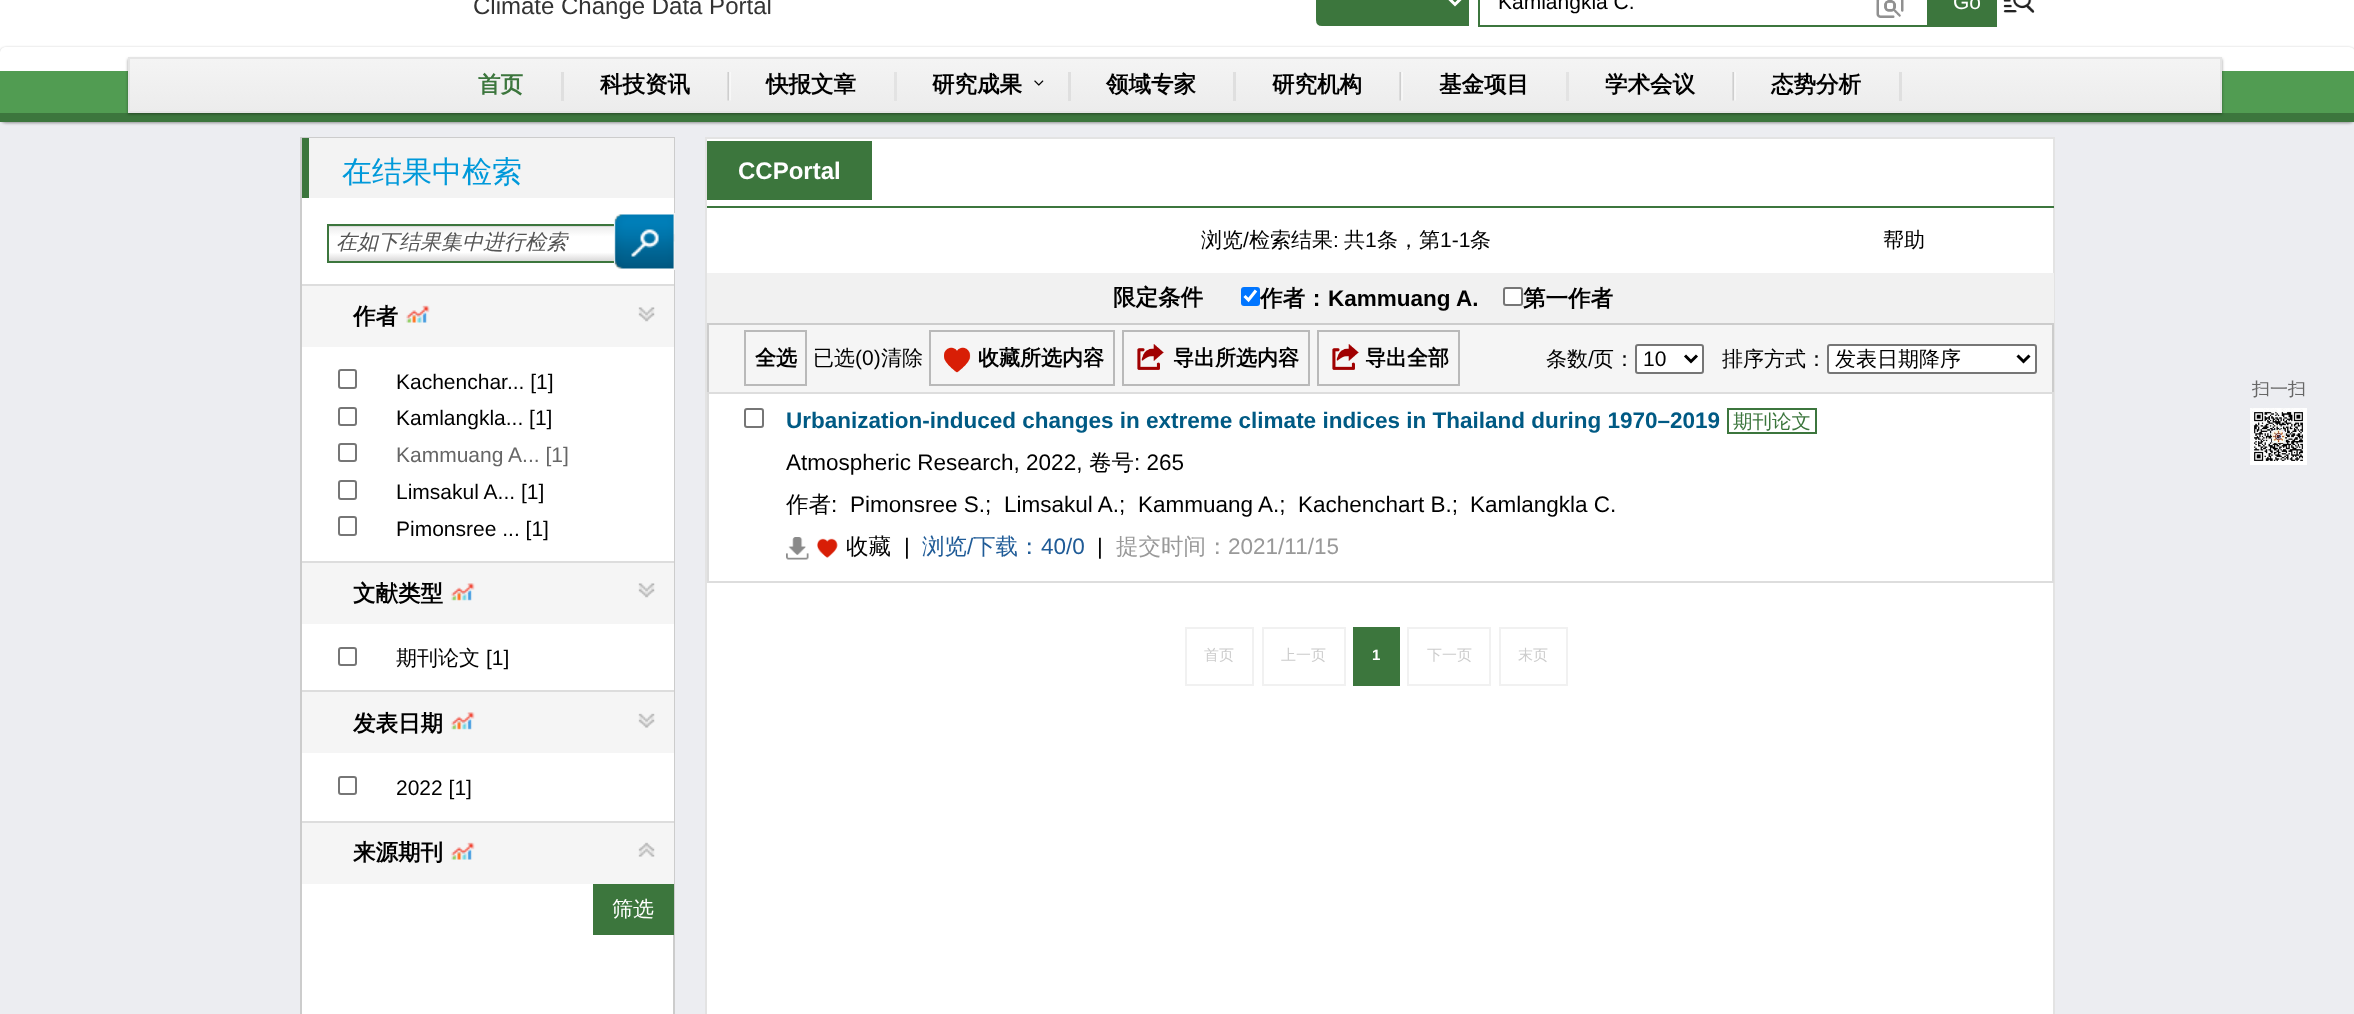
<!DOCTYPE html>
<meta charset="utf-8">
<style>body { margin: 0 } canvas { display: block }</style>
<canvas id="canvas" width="2354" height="1014"></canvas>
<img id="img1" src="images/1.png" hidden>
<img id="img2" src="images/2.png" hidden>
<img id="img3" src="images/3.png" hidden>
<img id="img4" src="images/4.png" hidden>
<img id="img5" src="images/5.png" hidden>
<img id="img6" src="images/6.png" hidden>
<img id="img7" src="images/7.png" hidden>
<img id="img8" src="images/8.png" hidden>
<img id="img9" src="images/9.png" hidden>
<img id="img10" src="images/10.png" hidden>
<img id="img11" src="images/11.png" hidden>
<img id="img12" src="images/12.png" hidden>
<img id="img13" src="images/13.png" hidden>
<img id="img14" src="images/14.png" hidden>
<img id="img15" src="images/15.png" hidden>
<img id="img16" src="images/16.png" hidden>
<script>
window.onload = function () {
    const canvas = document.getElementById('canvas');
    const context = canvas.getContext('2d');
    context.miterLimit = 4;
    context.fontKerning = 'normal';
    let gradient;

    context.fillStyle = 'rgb(236, 237, 241)';
    context.fillRect(0, 0, 2354, 1014);
    context.fillStyle = 'rgb(255, 255, 255)';
    context.fillRect(0, 0, 2354, 71);
    context.fillStyle = 'rgb(60, 118, 61)';
    context.beginPath();
    context.moveTo(1322, -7);
    context.lineTo(1468, -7);
    context.lineTo(1468, 25);
    context.lineTo(1322, 25);
    context.bezierCurveTo(1319, 25, 1317, 23, 1317, 20);
    context.lineTo(1317, -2);
    context.bezierCurveTo(1317, -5, 1319, -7, 1322, -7);
    context.closePath();
    context.fill();
    context.strokeStyle = 'rgb(60, 118, 61)';
    context.lineWidth = 2;
    context.stroke();
    context.beginPath();
    context.moveTo(1449, -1.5);
    context.lineTo(1455, 4.5);
    context.lineTo(1461, -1.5);
    context.strokeStyle = 'rgb(255, 255, 255)';
    context.lineWidth = 3;
    context.stroke();
    context.strokeStyle = 'rgb(60, 118, 61)';
    context.lineWidth = 2;
    context.strokeRect(1479, -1, 449, 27);
    context.fillRect(1929, 0, 68, 27);
    context.drawImage(document.getElementById('img1'), 2003, 0, 32, 13);
    context.drawImage(document.getElementById('img2'), 1876, 0, 28, 18);
    context.save();
    context.beginPath();
    context.moveTo(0, 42);
    context.lineTo(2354, 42);
    context.lineTo(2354, 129);
    context.lineTo(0, 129);
    context.closePath();
    context.moveTo(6, 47);
    context.lineTo(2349, 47);
    context.bezierCurveTo(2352.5, 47, 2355, 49.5, 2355, 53);
    context.lineTo(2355, 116);
    context.bezierCurveTo(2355, 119.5, 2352.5, 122, 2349, 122);
    context.lineTo(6, 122);
    context.bezierCurveTo(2.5, 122, 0, 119.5, 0, 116);
    context.lineTo(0, 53);
    context.bezierCurveTo(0, 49.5, 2.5, 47, 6, 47);
    context.closePath();
    context.clip('evenodd');
    context.fillStyle = 'rgba(0, 0, 0, 0.4)';
    context.filter = 'blur(1.5px)';
    context.beginPath();
    context.roundRect(0, 48, 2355, 75, 6);
    context.fill();
    context.filter = 'none';
    context.restore();
    context.fillStyle = 'rgb(81, 156, 82)';
    context.fillRect(0, 71, 2354, 42);
    context.fillStyle = 'rgb(60, 118, 61)';
    context.fillRect(0, 113, 2354, 9);
    context.fillStyle = 'rgba(0, 0, 0, 0.4)';
    context.filter = 'blur(1.5px)';
    context.beginPath();
    context.rect(128, 59, 2094, 55);
    context.fill();
    context.filter = 'none';
    gradient = context.createLinearGradient(1175, 111, 1175, 59);
    gradient.addColorStop(0, 'rgb(236, 236, 236)');
    gradient.addColorStop(1, 'rgb(244, 244, 244)');
    context.fillStyle = gradient;
    context.fillRect(130, 59, 2090, 52);
    context.strokeStyle = 'rgb(229, 229, 229)';
    context.strokeRect(129, 58, 2092, 54);
    context.fillStyle = 'rgb(223, 223, 223)';
    context.fillRect(561, 72, 3, 29);
    context.drawImage(document.getElementById('img3'), 727, 72, 4, 29);
    context.fillStyle = 'rgb(227, 227, 227)';
    context.fillRect(894, 72, 3, 29);
    context.drawImage(document.getElementById('img4'), 1034, 80, 10, 6);
    context.fillStyle = 'rgb(223, 223, 223)';
    context.fillRect(1068, 72, 3, 29);
    context.fillRect(1233, 72, 3, 29);
    context.drawImage(document.getElementById('img3'), 1399, 72, 4, 29);
    context.fillStyle = 'rgb(227, 227, 227)';
    context.fillRect(1566, 72, 3, 29);
    context.drawImage(document.getElementById('img3'), 1732, 72, 4, 29);
    context.fillStyle = 'rgb(223, 223, 223)';
    context.fillRect(1899, 72, 3, 29);
    context.fillStyle = 'rgb(255, 255, 255)';
    context.fillRect(302, 884, 371, 130);
    context.strokeStyle = 'rgb(204, 204, 204)';
    context.strokeRect(301, 138, 373, 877);
    context.fillRect(302, 198, 372, 86);
    context.fillStyle = 'rgb(243, 243, 243)';
    context.fillRect(309, 138, 365, 60);
    context.fillStyle = 'rgb(60, 118, 61)';
    context.fillRect(302, 138, 7, 60);
    gradient = context.createLinearGradient(486, 225, 486, 261);
    gradient.addColorStop(0, 'rgb(234, 234, 234)');
    gradient.addColorStop(0.32, 'rgb(255, 255, 255)');
    gradient.addColorStop(0.76, 'rgb(255, 255, 255)');
    gradient.addColorStop(1, 'rgb(218, 217, 217)');
    context.fillStyle = gradient;
    context.fillRect(329, 227, 285, 34);
    context.fillStyle = 'rgb(218, 218, 218)';
    context.fillRect(329, 226, 285, 1);
    context.strokeStyle = 'rgb(60, 118, 61)';
    context.strokeRect(328, 225, 316, 37);
    context.fillStyle = 'rgb(255, 255, 255)';
    context.fillRect(614, 213, 61, 57);
    context.drawImage(document.getElementById('img5'), 613, 213, 62, 57);
    context.fillRect(302, 347, 372, 474);
    context.fillStyle = 'rgb(245, 245, 245)';
    context.fillRect(302, 286, 372, 61);
    context.fillStyle = 'rgb(221, 221, 221)';
    context.fillRect(302, 284, 372, 2);
    context.drawImage(document.getElementById('img6'), 406, 305, 24, 18);
    context.drawImage(document.getElementById('img7'), 638, 307, 17, 15);
    context.beginPath();
    context.roundRect(339, 370, 17, 18, 2);
    context.strokeStyle = 'rgb(118, 118, 118)';
    context.stroke();
    context.beginPath();
    context.roundRect(339, 408, 17, 17, 2);
    context.stroke();
    context.beginPath();
    context.roundRect(339, 444, 17, 17, 2);
    context.stroke();
    context.beginPath();
    context.roundRect(339, 481, 17, 18, 2);
    context.stroke();
    context.beginPath();
    context.roundRect(339, 517, 17, 18, 2);
    context.stroke();
    context.fillStyle = 'rgb(245, 245, 245)';
    context.fillRect(302, 563, 372, 61);
    context.fillStyle = 'rgb(221, 221, 221)';
    context.fillRect(302, 561, 372, 2);
    context.drawImage(document.getElementById('img8'), 451, 583, 24, 18);
    context.drawImage(document.getElementById('img7'), 638, 583, 17, 15);
    context.beginPath();
    context.roundRect(339, 648, 17, 17, 2);
    context.stroke();
    context.fillStyle = 'rgb(245, 245, 245)';
    context.fillRect(302, 692, 372, 61);
    context.fillStyle = 'rgb(221, 221, 221)';
    context.fillRect(302, 690, 372, 2);
    context.drawImage(document.getElementById('img8'), 451, 712, 24, 18);
    context.drawImage(document.getElementById('img9'), 638, 713, 17, 15);
    context.beginPath();
    context.roundRect(339, 777, 17, 17, 2);
    context.stroke();
    context.fillStyle = 'rgb(245, 245, 245)';
    context.fillRect(302, 823, 372, 61);
    context.fillStyle = 'rgb(221, 221, 221)';
    context.fillRect(302, 821, 372, 2);
    context.drawImage(document.getElementById('img10'), 451, 842, 24, 18);
    context.drawImage(document.getElementById('img11'), 638, 842, 17, 15);
    context.fillStyle = 'rgb(60, 118, 61)';
    context.fillRect(593, 884, 81, 51);
    context.fillStyle = 'rgb(255, 255, 255)';
    context.beginPath();
    context.rect(706, 138, 1348, 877);
    context.fill();
    context.strokeStyle = 'rgb(227, 227, 227)';
    context.stroke();
    context.fillStyle = 'rgb(60, 118, 61)';
    context.fillRect(707, 206, 1347, 2);
    context.fillRect(707, 141, 165, 59);
    context.fillStyle = 'rgb(241, 241, 241)';
    context.fillRect(707, 273, 1347, 50);
    context.fillStyle = 'rgb(0, 117, 255)';
    context.beginPath();
    context.roundRect(1241, 287, 19, 19, 3);
    context.fill();
    context.beginPath();
    context.moveTo(1244.5, 296);
    context.lineTo(1248.5, 300);
    context.lineTo(1256, 290.5);
    context.strokeStyle = 'rgb(255, 255, 255)';
    context.lineWidth = 3.1;
    context.stroke();
    context.fillStyle = 'rgb(255, 255, 255)';
    context.beginPath();
    context.roundRect(1504, 288, 18, 17, 2);
    context.fill();
    context.strokeStyle = 'rgb(118, 118, 118)';
    context.lineWidth = 2;
    context.stroke();
    context.fillStyle = 'rgb(204, 204, 204)';
    context.fillRect(707, 323, 1347, 2);
    context.fillRect(2052, 323, 2, 69);
    context.fillRect(707, 323, 2, 69);
    context.fillStyle = 'rgb(245, 245, 245)';
    context.fillRect(709, 325, 1343, 67);
    context.strokeStyle = 'rgb(185, 185, 185)';
    context.strokeRect(745, 331, 61, 54);
    context.drawImage(document.getElementById('img12'), 944, 347, 27, 26);
    context.strokeRect(930, 331, 184, 54);
    context.drawImage(document.getElementById('img13'), 1137, 344, 27, 26);
    context.strokeRect(1123, 331, 186, 54);
    context.drawImage(document.getElementById('img13'), 1332, 344, 27, 26);
    context.strokeRect(1318, 331, 141, 54);
    context.fillStyle = 'rgb(255, 255, 255)';
    context.beginPath();
    context.roundRect(1636, 345, 67, 28, 2);
    context.fill();
    context.strokeStyle = 'rgb(118, 118, 118)';
    context.stroke();
    context.beginPath();
    context.moveTo(1685, 355.5);
    context.lineTo(1691, 361.5);
    context.lineTo(1697, 355.5);
    context.strokeStyle = 'rgb(0, 0, 0)';
    context.lineWidth = 3;
    context.stroke();
    context.beginPath();
    context.roundRect(1828, 345, 208, 28, 2);
    context.fill();
    context.strokeStyle = 'rgb(118, 118, 118)';
    context.lineWidth = 2;
    context.stroke();
    context.beginPath();
    context.moveTo(2017.5, 355.5);
    context.lineTo(2023.5, 361.5);
    context.lineTo(2029.5, 355.5);
    context.strokeStyle = 'rgb(0, 0, 0)';
    context.lineWidth = 3;
    context.stroke();
    context.fillStyle = 'rgb(221, 221, 221)';
    context.fillRect(707, 392, 1347, 2);
    context.fillRect(2052, 392, 2, 190);
    context.fillRect(707, 581, 1347, 2);
    context.fillRect(707, 392, 2, 190);
    context.beginPath();
    context.roundRect(745, 409, 18, 18, 2);
    context.strokeStyle = 'rgb(118, 118, 118)';
    context.lineWidth = 2;
    context.stroke();
    context.strokeStyle = 'rgb(60, 118, 61)';
    context.strokeRect(1728, 409, 88, 24);
    context.drawImage(document.getElementById('img14'), 786, 537, 23, 23);
    context.drawImage(document.getElementById('img15'), 817, 538, 21, 20);
    context.strokeStyle = 'rgb(241, 241, 241)';
    context.strokeRect(1186, 628, 67, 57);
    context.strokeRect(1263, 628, 82, 57);
    context.fillStyle = 'rgb(60, 118, 61)';
    context.fillRect(1353, 627, 47, 59);
    context.strokeRect(1408, 628, 82, 57);
    context.strokeRect(1500, 628, 67, 57);
    context.drawImage(document.getElementById('img16'), 2250, 408, 57, 57);
    context.font = '24px Liberation Sans';
    context.fillStyle = 'rgb(51, 51, 51)';
    context.fillText('Climate Change Data Portal', 473, 14);
    context.font = '21px Liberation Sans';
    context.fillStyle = 'rgb(0, 0, 0)';
    context.fillText('Kamlangkla C.', 1498, 9);
    context.fillStyle = 'rgb(255, 255, 255)';
    context.fillText('Go', 1953, 9);
    context.font = 'bold 22.5px WenQuanYi Zen Hei';
    context.fillStyle = 'rgb(60, 118, 61)';
    context.fillText('首页', 478, 92);
    context.fillStyle = 'rgb(0, 0, 0)';
    context.fillText('科技资讯', 600, 92);
    context.fillText('快报文章', 766, 92);
    context.fillText('研究成果', 932, 92);
    context.fillText('领域专家', 1106, 92);
    context.fillText('研究机构', 1272, 92);
    context.fillText('基金项目', 1439, 92);
    context.fillText('学术会议', 1605, 92);
    context.fillText('态势分析', 1771, 92);
    context.font = '500 30px WenQuanYi Zen Hei';
    context.fillStyle = 'rgb(0, 153, 218)';
    context.fillText('在结果中检索', 342, 182);
    context.font = 'italic 500 21px WenQuanYi Zen Hei';
    context.fillStyle = 'rgb(85, 85, 85)';
    context.fillText('在如下结果集中进行检索', 336, 249);
    context.font = 'bold 22.5px WenQuanYi Zen Hei';
    context.fillStyle = 'rgb(0, 0, 0)';
    context.fillText('作者', 353, 324);
    context.font = '21px Liberation Sans';
    context.fillText('Kachenchar... [1]', 396, 389);
    context.fillText('Kamlangkla... [1]', 396, 425);
    context.fillStyle = 'rgb(102, 102, 102)';
    context.fillText('Kammuang A... [1]', 396, 462);
    context.fillStyle = 'rgb(0, 0, 0)';
    context.fillText('Limsakul A... [1]', 396, 499);
    context.fillText('Pimonsree ... [1]', 396, 536);
    context.font = 'bold 22.5px WenQuanYi Zen Hei';
    context.fillText('文献类型', 353, 601);
    context.font = '500 21px WenQuanYi Zen Hei';
    context.fillText('期刊论文', 396, 665);
    context.font = '21px Liberation Sans';
    context.fillText('[1]', 486, 665);
    context.font = 'bold 22.5px WenQuanYi Zen Hei';
    context.fillText('发表日期', 353, 731);
    context.font = '21px Liberation Sans';
    context.fillText('2022 [1]', 396, 795);
    context.font = 'bold 22.5px WenQuanYi Zen Hei';
    context.fillText('来源期刊', 353, 860);
    context.font = '500 21px WenQuanYi Zen Hei';
    context.fillStyle = 'rgb(255, 255, 255)';
    context.fillText('筛选', 612, 916);
    context.font = 'bold 24px Liberation Sans';
    context.fillText('CCPortal', 738, 179);
    context.font = '500 21px WenQuanYi Zen Hei';
    context.fillStyle = 'rgb(0, 0, 0)';
    context.fillText('浏览', 1201, 247);
    context.font = '21px Liberation Sans';
    context.fillText('/', 1243, 247);
    context.font = '500 21px WenQuanYi Zen Hei';
    context.fillText('检索结果', 1249, 247);
    context.font = '21px Liberation Sans';
    context.fillText(':', 1333, 247);
    context.font = '500 21px WenQuanYi Zen Hei';
    context.fillText('共', 1344, 247);
    context.font = '21px Liberation Sans';
    context.fillText('1', 1365, 247);
    context.font = '500 21px WenQuanYi Zen Hei';
    context.fillText('条，第', 1377, 247);
    context.font = '21px Liberation Sans';
    context.fillText('1-1', 1440, 247);
    context.font = '500 21px WenQuanYi Zen Hei';
    context.fillText('条', 1470, 247);
    context.fillText('帮助', 1883, 247);
    context.font = 'bold 22.5px WenQuanYi Zen Hei';
    context.fillText('限定条件', 1113, 305);
    context.fillText('作者：', 1260, 306);
    context.font = 'bold 22.5px Liberation Sans';
    context.fillText('Kammuang A.', 1328, 306);
    context.font = 'bold 22.5px WenQuanYi Zen Hei';
    context.fillText('第一作者', 1523, 306);
    context.font = 'bold 21px WenQuanYi Zen Hei';
    context.fillText('全选', 755, 365);
    context.font = '500 21px WenQuanYi Zen Hei';
    context.fillText('已选', 813, 365);
    context.font = '21px Liberation Sans';
    context.fillText('(0)', 855, 365);
    context.font = '500 21px WenQuanYi Zen Hei';
    context.fillText('清除', 881, 365);
    context.font = 'bold 21px WenQuanYi Zen Hei';
    context.fillText('收藏所选内容', 978, 365);
    context.fillText('导出所选内容', 1173, 365);
    context.fillText('导出全部', 1365, 365);
    context.font = '500 21px WenQuanYi Zen Hei';
    context.fillText('条数', 1546, 366);
    context.font = '21px Liberation Sans';
    context.fillText('/', 1588, 366);
    context.font = '500 21px WenQuanYi Zen Hei';
    context.fillText('页：', 1593, 366);
    context.font = '21px Liberation Sans';
    context.fillText('10', 1643, 366);
    context.font = '500 21px WenQuanYi Zen Hei';
    context.fillText('排序方式：', 1722, 366);
    context.fillText('发表日期降序', 1835, 366);
    context.font = 'bold 22.5px Liberation Sans';
    context.fillStyle = 'rgb(0, 90, 132)';
    context.fillText('Urbanization-induced changes in extreme climate indices in Thailand during 1970–2019', 786, 428);
    context.font = '500 19.5px WenQuanYi Zen Hei';
    context.fillStyle = 'rgb(60, 118, 61)';
    context.fillText('期刊论文', 1733, 428);
    context.font = '22.5px Liberation Sans';
    context.fillStyle = 'rgb(0, 0, 0)';
    context.fillText('Atmospheric Research, 2022,', 786, 470);
    context.font = '500 22.5px WenQuanYi Zen Hei';
    context.fillText('卷号', 1089, 470);
    context.font = '22.5px Liberation Sans';
    context.fillText(': 265', 1134, 470);
    context.font = '500 22.5px WenQuanYi Zen Hei';
    context.fillText('作者', 786, 512);
    context.font = '22.5px Liberation Sans';
    context.fillText(':', 831, 512);
    context.fillText('Pimonsree S.;', 850, 512);
    context.fillText('Limsakul A.;', 1004, 512);
    context.fillText('Kammuang A.;', 1138, 512);
    context.fillText('Kachenchart B.;', 1298, 512);
    context.fillText('Kamlangkla C.', 1470, 512);
    context.font = '500 22.5px WenQuanYi Zen Hei';
    context.fillText('收藏', 846, 554);
    context.font = '22.5px Liberation Sans';
    context.fillText('|', 904, 554);
    context.font = '500 22.5px WenQuanYi Zen Hei';
    context.fillStyle = 'rgb(31, 91, 151)';
    context.fillText('浏览', 922, 554);
    context.font = '22.5px Liberation Sans';
    context.fillText('/', 967, 554);
    context.font = '500 22.5px WenQuanYi Zen Hei';
    context.fillText('下载：', 973, 554);
    context.font = '22.5px Liberation Sans';
    context.fillText('40/0', 1041, 554);
    context.fillStyle = 'rgb(0, 0, 0)';
    context.fillText('|', 1097, 554);
    context.font = '500 22.5px WenQuanYi Zen Hei';
    context.fillStyle = 'rgb(153, 153, 153)';
    context.fillText('提交时间：', 1116, 554);
    context.font = '22.5px Liberation Sans';
    context.fillText('2021/11/15', 1228, 554);
    context.font = '500 15px WenQuanYi Zen Hei';
    context.fillStyle = 'rgb(204, 204, 204)';
    context.fillText('首页', 1204, 660);
    context.fillText('上一页', 1281, 660);
    context.font = 'bold 15px Liberation Sans';
    context.fillStyle = 'rgb(255, 255, 255)';
    context.fillText('1', 1372, 660);
    context.font = '500 15px WenQuanYi Zen Hei';
    context.fillStyle = 'rgb(204, 204, 204)';
    context.fillText('下一页', 1427, 660);
    context.fillText('末页', 1518, 660);
    context.font = '500 18px WenQuanYi Zen Hei';
    context.fillStyle = 'rgb(102, 102, 102)';
    context.fillText('扫一扫', 2252, 395);
};
</script>
